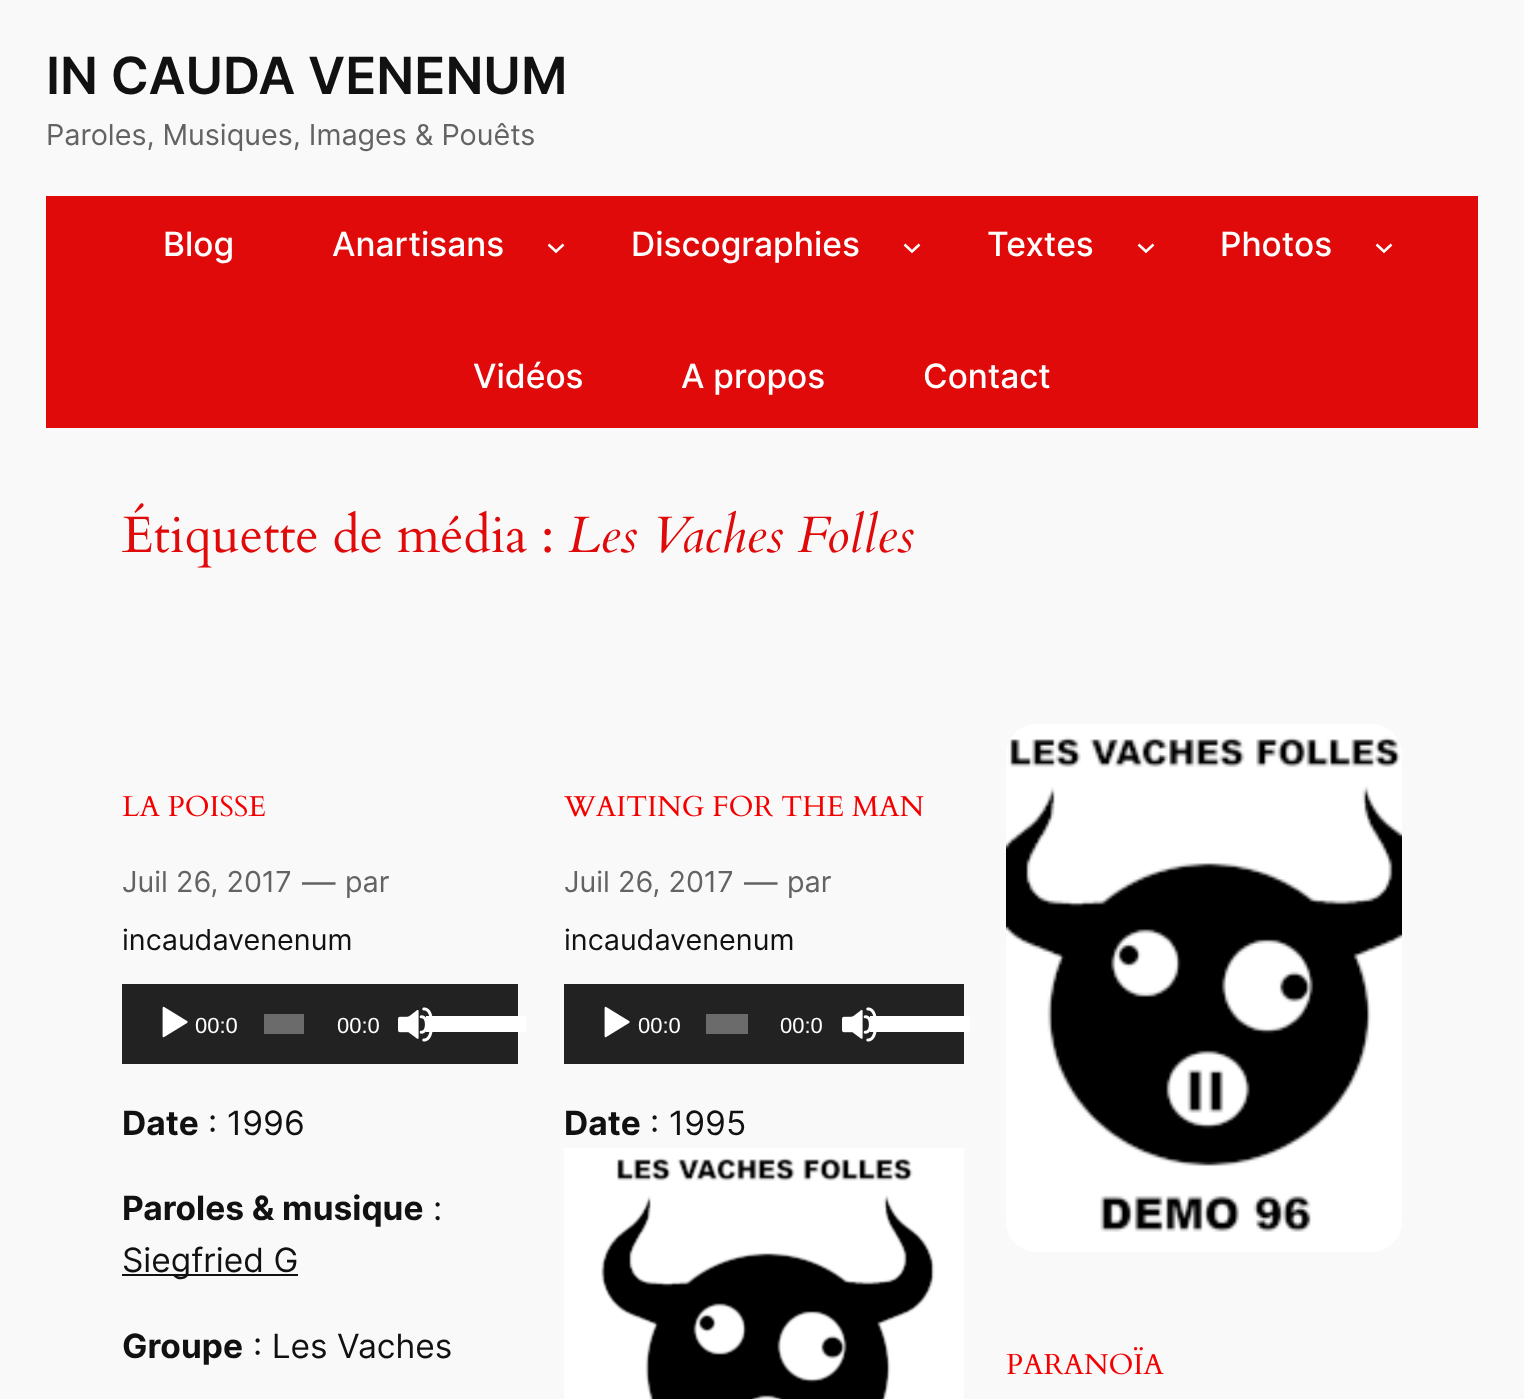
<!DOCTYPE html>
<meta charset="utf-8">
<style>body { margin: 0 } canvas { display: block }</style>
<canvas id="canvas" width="1524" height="1399"></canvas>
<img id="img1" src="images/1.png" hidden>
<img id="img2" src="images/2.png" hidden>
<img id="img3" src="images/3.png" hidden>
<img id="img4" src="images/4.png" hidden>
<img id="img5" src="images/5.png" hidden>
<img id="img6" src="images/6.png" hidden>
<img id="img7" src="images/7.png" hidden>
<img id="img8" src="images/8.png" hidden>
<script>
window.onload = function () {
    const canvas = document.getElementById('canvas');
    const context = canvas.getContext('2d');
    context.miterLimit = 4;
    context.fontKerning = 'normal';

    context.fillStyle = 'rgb(249, 249, 249)';
    context.fillRect(0, 0, 1524, 1399);
    context.fillStyle = 'rgb(224, 10, 10)';
    context.fillRect(46, 196, 1432, 232);
    context.beginPath();
    context.moveTo(548.5, 244.5);
    context.lineTo(556, 251.5);
    context.lineTo(563.5, 244.5);
    context.strokeStyle = 'rgb(255, 255, 255)';
    context.lineWidth = 2.5;
    context.stroke();
    context.beginPath();
    context.moveTo(904.5, 244.5);
    context.lineTo(912, 251.5);
    context.lineTo(919.5, 244.5);
    context.stroke();
    context.beginPath();
    context.moveTo(1138.5, 244.5);
    context.lineTo(1146, 251.5);
    context.lineTo(1153.5, 244.5);
    context.stroke();
    context.beginPath();
    context.moveTo(1376.5, 244.5);
    context.lineTo(1384, 251.5);
    context.lineTo(1391.5, 244.5);
    context.stroke();
    context.drawImage(document.getElementById('img1'), 122, 503, 429, 65);
    context.drawImage(document.getElementById('img2'), 122, 795, 143, 22);
    context.fillStyle = 'rgb(34, 34, 34)';
    context.fillRect(122, 984, 396, 80);
    context.drawImage(document.getElementById('img3'), 162, 1006, 26, 32);
    context.fillStyle = 'rgb(107, 107, 107)';
    context.fillRect(264, 1014, 40, 20);
    context.drawImage(document.getElementById('img4'), 398, 1007, 35, 35);
    context.fillStyle = 'rgb(255, 255, 255)';
    context.fillRect(426, 1016, 100, 16);
    context.fillStyle = 'rgb(17, 17, 17)';
    context.fillRect(122, 1274, 176, 2);
    context.drawImage(document.getElementById('img5'), 563, 795, 361, 22);
    context.fillStyle = 'rgb(34, 34, 34)';
    context.fillRect(564, 984, 400, 80);
    context.drawImage(document.getElementById('img3'), 604, 1006, 26, 32);
    context.fillStyle = 'rgb(107, 107, 107)';
    context.fillRect(706, 1014, 42, 20);
    context.drawImage(document.getElementById('img4'), 842, 1007, 35, 35);
    context.fillStyle = 'rgb(255, 255, 255)';
    context.fillRect(870, 1016, 100, 16);
    context.drawImage(document.getElementById('img6'), 564, 1148, 400, 251);
    context.drawImage(document.getElementById('img7'), 1006, 724, 396, 528);
    context.drawImage(document.getElementById('img8'), 1006, 1347, 158, 28);
    context.font = '600 51.25px Inter';
    context.fillStyle = 'rgb(17, 17, 17)';
    context.fillText('IN CAUDA VENENUM', 46, 94);
    context.font = '28.75px Inter';
    context.fillStyle = 'rgb(99, 99, 99)';
    context.fillText('Paroles, Musiques, Images & Pouêts', 46, 145);
    context.font = '500 33.5px Inter';
    context.fillStyle = 'rgb(255, 255, 255)';
    context.fillText('Blog', 163, 256);
    context.fillText('Anartisans', 332, 256);
    context.fillText('Discographies', 631, 256);
    context.fillText('Textes', 987, 256);
    context.fillText('Photos', 1220, 256);
    context.fillText('Vidéos', 473, 388);
    context.fillText('A propos', 681, 388);
    context.fillText('Contact', 923, 388);
    context.font = 'italic 51.25px Cardo';
    context.fillStyle = 'rgb(224, 10, 10)';
    context.fillText('Les Vaches Folles', 568, 552);
    context.font = '28.75px Inter';
    context.fillStyle = 'rgb(99, 99, 99)';
    context.fillText('Juil 26, 2017', 122, 892);
    context.font = '33.5px Inter';
    context.fillText('—', 302, 894);
    context.font = '28.75px Inter';
    context.fillText('par', 345, 892);
    context.fillStyle = 'rgb(17, 17, 17)';
    context.fillText('incaudavenenum', 122, 950);
    context.font = '22px Liberation Sans';
    context.fillStyle = 'rgb(255, 255, 255)';
    context.fillText('00:0', 195, 1033);
    context.fillText('00:0', 337, 1033);
    context.font = 'bold 33.5px Inter';
    context.fillStyle = 'rgb(17, 17, 17)';
    context.fillText('Date', 122, 1135);
    context.font = '33.5px Inter';
    context.fillText(': 1996', 208, 1135);
    context.font = 'bold 33.5px Inter';
    context.fillText('Paroles & musique', 122, 1220);
    context.font = '33.5px Inter';
    context.fillText(':', 433, 1220);
    context.fillText('Siegfried G', 122, 1272);
    context.font = 'bold 33.5px Inter';
    context.fillText('Groupe', 122, 1358);
    context.font = '33.5px Inter';
    context.fillText(': Les Vaches', 253, 1358);
    context.font = '28.75px Inter';
    context.fillStyle = 'rgb(99, 99, 99)';
    context.fillText('Juil 26, 2017', 564, 892);
    context.font = '33.5px Inter';
    context.fillText('—', 744, 894);
    context.font = '28.75px Inter';
    context.fillText('par', 787, 892);
    context.fillStyle = 'rgb(17, 17, 17)';
    context.fillText('incaudavenenum', 564, 950);
    context.font = '22px Liberation Sans';
    context.fillStyle = 'rgb(255, 255, 255)';
    context.fillText('00:0', 638, 1033);
    context.fillText('00:0', 780, 1033);
    context.font = 'bold 33.5px Inter';
    context.fillStyle = 'rgb(17, 17, 17)';
    context.fillText('Date', 564, 1135);
    context.font = '33.5px Inter';
    context.fillText(': 1995', 650, 1135);
};
</script>
